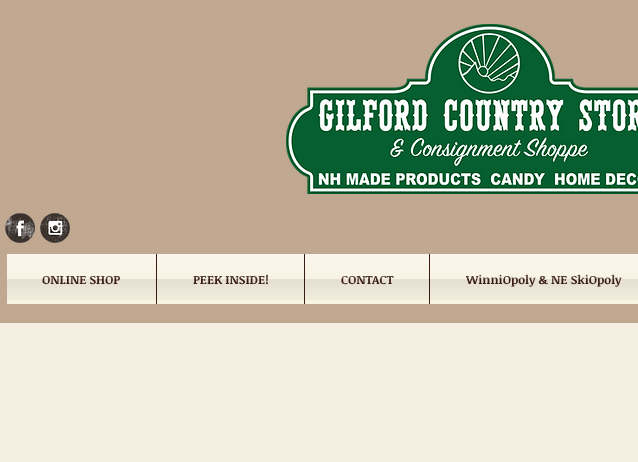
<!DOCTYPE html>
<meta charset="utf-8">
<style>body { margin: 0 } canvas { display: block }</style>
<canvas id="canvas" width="638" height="462"></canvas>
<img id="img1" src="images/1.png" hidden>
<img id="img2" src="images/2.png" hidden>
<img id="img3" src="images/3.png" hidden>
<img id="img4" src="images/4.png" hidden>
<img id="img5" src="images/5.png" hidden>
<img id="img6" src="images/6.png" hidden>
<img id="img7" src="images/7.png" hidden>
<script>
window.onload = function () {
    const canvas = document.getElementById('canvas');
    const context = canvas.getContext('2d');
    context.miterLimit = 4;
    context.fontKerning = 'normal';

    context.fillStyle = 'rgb(192, 168, 145)';
    context.fillRect(0, 0, 638, 462);
    context.drawImage(document.getElementById('img1'), 286, 24, 352, 170);
    context.drawImage(document.getElementById('img2'), 5, 213, 30, 30);
    context.drawImage(document.getElementById('img3'), 40, 213, 30, 30);
    context.fillStyle = 'rgb(247, 242, 226)';
    context.fillRect(7, 254, 149, 50);
    context.fillRect(157, 254, 147, 50);
    context.fillStyle = 'rgb(58, 28, 19)';
    context.fillRect(156, 254, 1, 50);
    context.fillStyle = 'rgb(247, 242, 226)';
    context.fillRect(305, 254, 124, 50);
    context.fillStyle = 'rgb(58, 28, 19)';
    context.fillRect(304, 254, 1, 50);
    context.fillStyle = 'rgb(247, 242, 226)';
    context.fillRect(430, 254, 208, 50);
    context.fillStyle = 'rgb(58, 28, 19)';
    context.fillRect(429, 254, 1, 50);
    context.fillStyle = 'rgb(244, 239, 225)';
    context.fillRect(0, 323, 638, 139);
    context.font = 'bold 12px Noticia Text';
    context.fillStyle = 'rgb(58, 28, 19)';
    context.fillText('ONLINE SHOP', 42, 284);
    context.drawImage(document.getElementById('img4'), 7, 254, 149, 46);
    context.fillText('PEEK INSIDE!', 193, 284);
    context.drawImage(document.getElementById('img5'), 157, 254, 147, 46);
    context.fillText('CONTACT', 341, 284);
    context.drawImage(document.getElementById('img6'), 305, 254, 124, 46);
    context.fillText('WinniOpoly & NE SkiOpoly', 466, 284);
    context.drawImage(document.getElementById('img7'), 430, 254, 208, 46);
};
</script>
